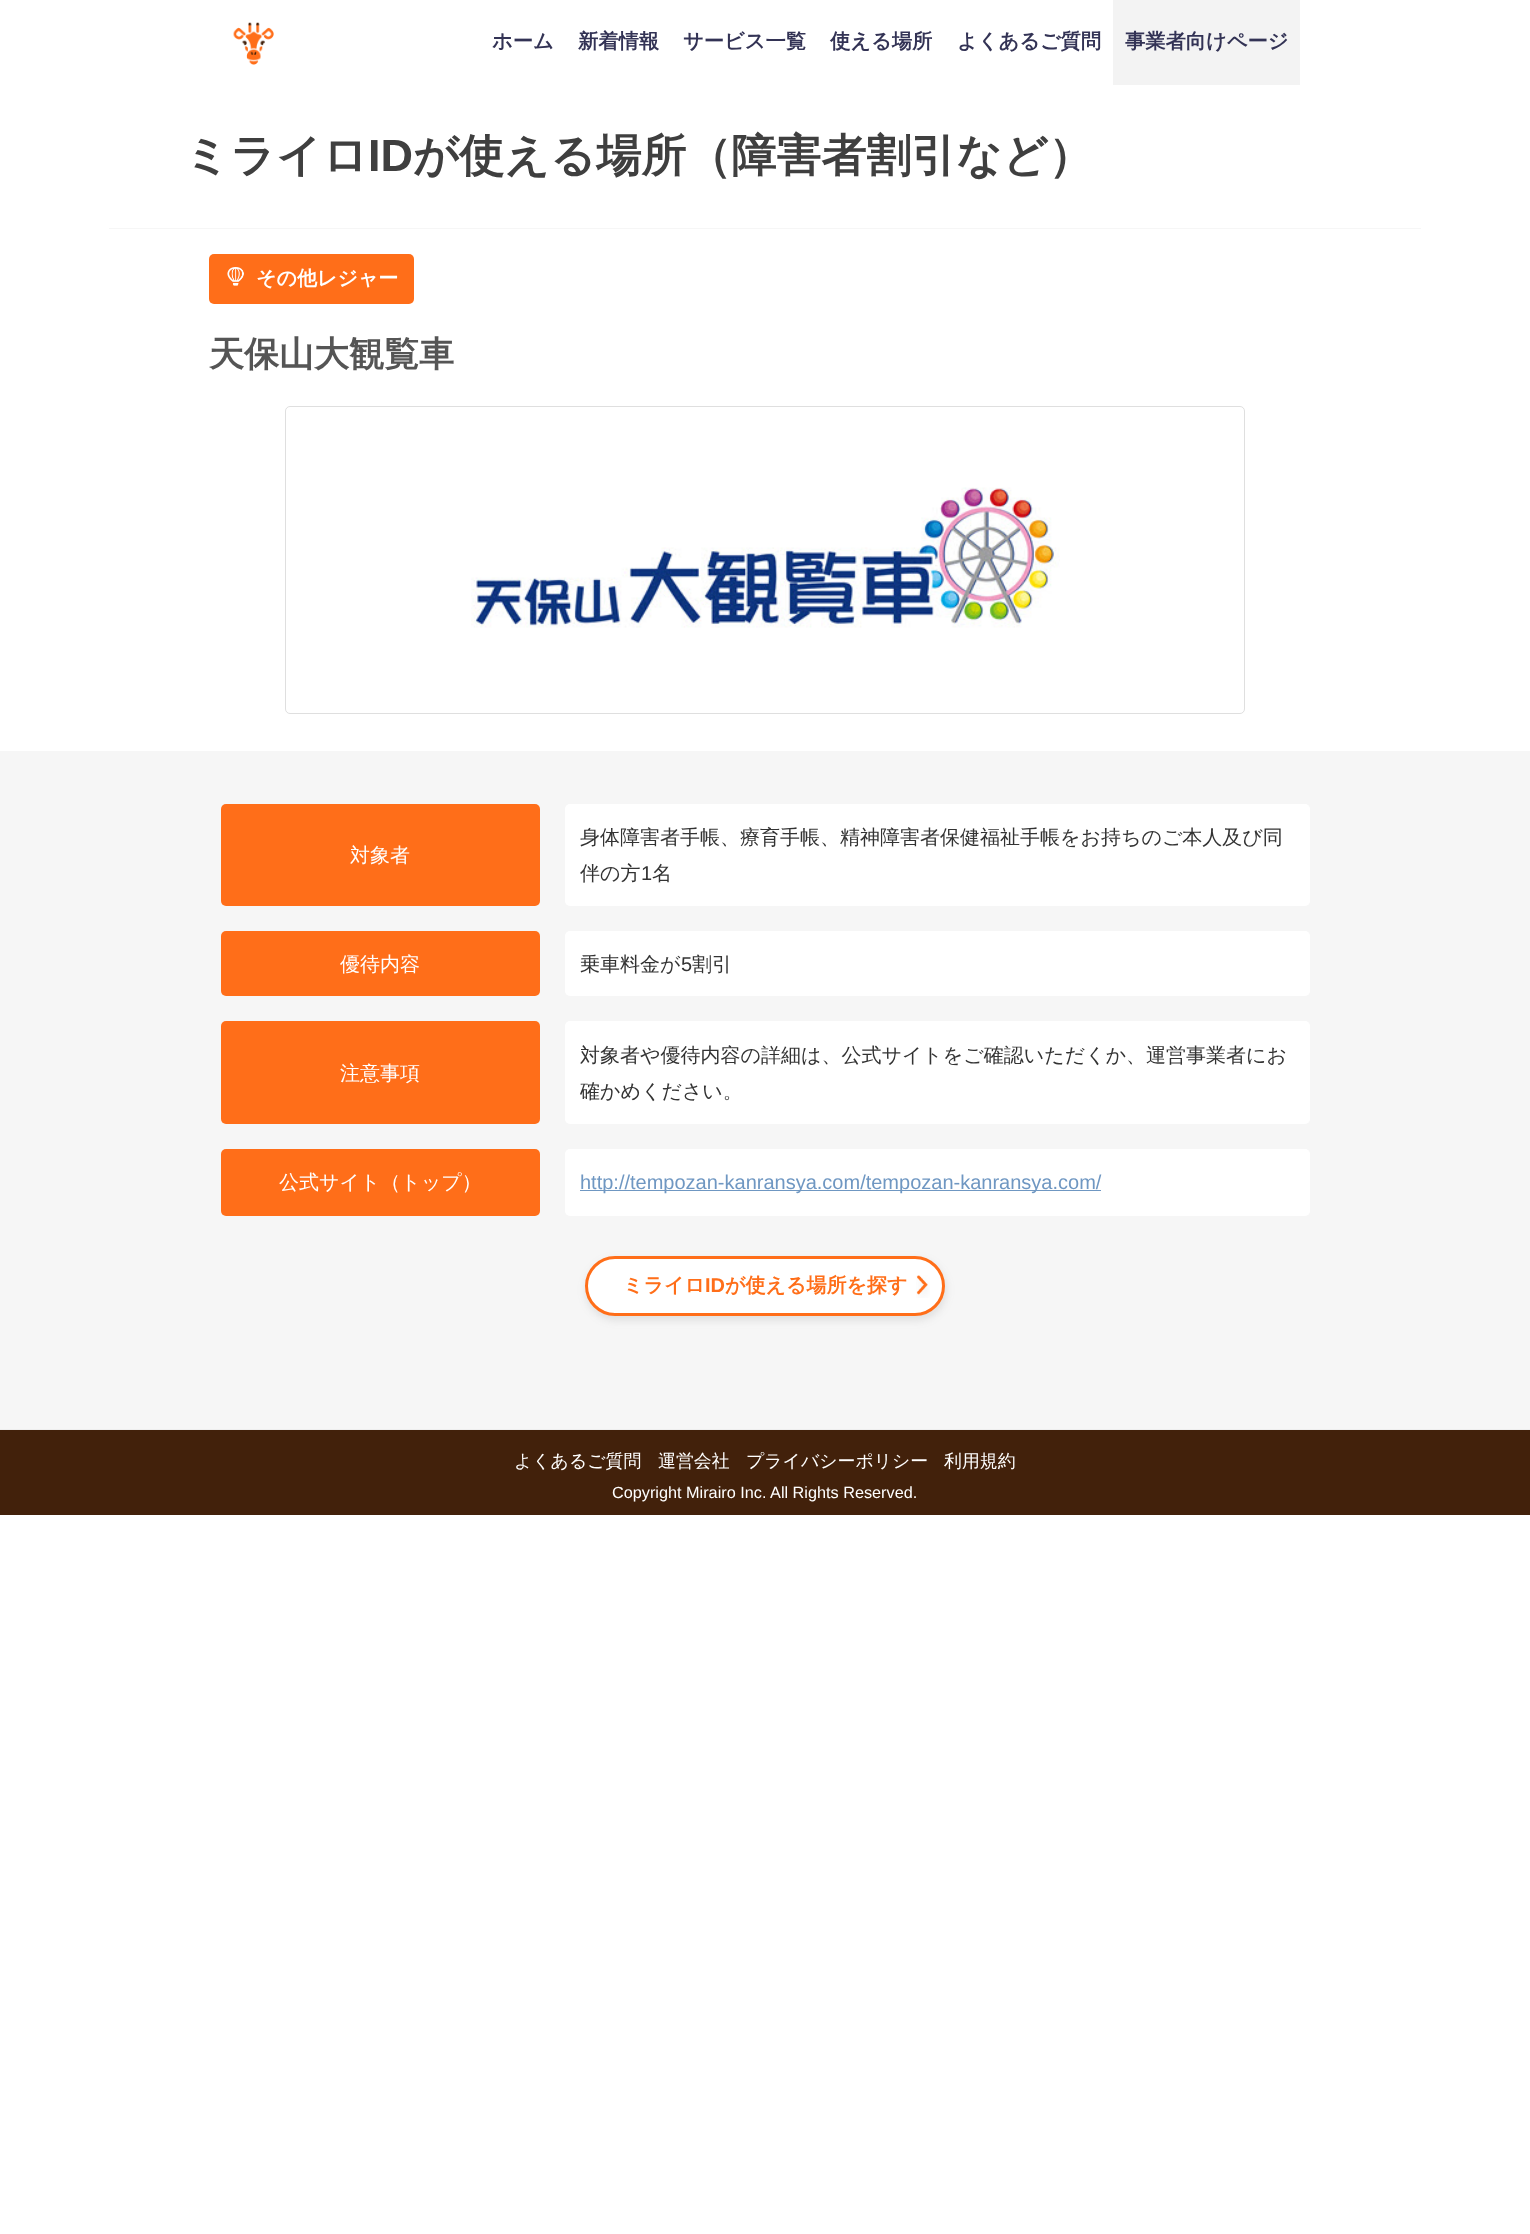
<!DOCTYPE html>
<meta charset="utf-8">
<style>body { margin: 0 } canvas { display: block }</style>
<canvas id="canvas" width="1530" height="2234"></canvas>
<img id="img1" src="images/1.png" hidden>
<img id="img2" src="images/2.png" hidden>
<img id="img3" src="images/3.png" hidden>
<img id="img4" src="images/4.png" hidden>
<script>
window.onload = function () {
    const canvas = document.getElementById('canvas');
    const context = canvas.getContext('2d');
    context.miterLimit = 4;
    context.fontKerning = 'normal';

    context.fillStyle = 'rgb(255, 255, 255)';
    context.fillRect(0, 0, 1530, 2234);
    context.drawImage(document.getElementById('img1'), 233, 22, 41, 43);
    context.fillStyle = 'rgb(243, 243, 243)';
    context.fillRect(1113, 0, 187, 85);
    context.fillStyle = 'rgb(246, 246, 246)';
    context.fillRect(109, 228, 1312, 1);
    context.fillStyle = 'rgb(255, 110, 25)';
    context.beginPath();
    context.roundRect(209, 254, 205, 50, 5);
    context.fill();
    context.drawImage(document.getElementById('img2'), 227, 267, 17, 19);
    context.beginPath();
    context.roundRect(285.5, 406.5, 959, 307, 4.5);
    context.strokeStyle = 'rgb(223, 223, 223)';
    context.stroke();
    context.drawImage(document.getElementById('img3'), 471, 487, 589, 141);
    context.fillStyle = 'rgb(246, 246, 246)';
    context.fillRect(0, 751, 1530, 678);
    context.fillStyle = 'rgb(255, 110, 25)';
    context.beginPath();
    context.roundRect(221, 804, 319, 102, 5);
    context.fill();
    context.fillStyle = 'rgb(255, 255, 255)';
    context.beginPath();
    context.roundRect(565, 804, 745, 102, 5);
    context.fill();
    context.fillStyle = 'rgb(255, 110, 25)';
    context.beginPath();
    context.roundRect(221, 931, 319, 65, 5);
    context.fill();
    context.fillStyle = 'rgb(255, 255, 255)';
    context.beginPath();
    context.roundRect(565, 931, 745, 65, 5);
    context.fill();
    context.fillStyle = 'rgb(255, 110, 25)';
    context.beginPath();
    context.roundRect(221, 1021, 319, 103, 5);
    context.fill();
    context.fillStyle = 'rgb(255, 255, 255)';
    context.beginPath();
    context.roundRect(565, 1021, 745, 103, 5);
    context.fill();
    context.fillStyle = 'rgb(255, 110, 25)';
    context.beginPath();
    context.roundRect(221, 1149, 319, 67, 5);
    context.fill();
    context.fillStyle = 'rgb(255, 255, 255)';
    context.beginPath();
    context.roundRect(565, 1149, 745, 67, 5);
    context.fill();
    context.fillStyle = 'rgb(111, 151, 194)';
    context.fillRect(580, 1190, 521, 1);
    context.fillStyle = 'rgba(100, 100, 100, 0.16)';
    context.filter = 'blur(4px)';
    context.beginPath();
    context.roundRect(586, 1260, 360, 60, 30);
    context.fill();
    context.filter = 'none';
    context.fillStyle = 'rgb(255, 255, 255)';
    context.beginPath();
    context.roundRect(586.5, 1257.5, 357, 57, 28.5);
    context.fill();
    context.strokeStyle = 'rgb(255, 110, 25)';
    context.lineWidth = 3;
    context.stroke();
    context.drawImage(document.getElementById('img4'), 916, 1275, 14, 23);
    context.fillStyle = 'rgb(66, 33, 11)';
    context.fillRect(0, 1430, 1530, 85);
    context.fillStyle = 'rgb(238, 238, 238)';
    context.fillRect(0, 1429, 1530, 1);
    context.font = 'bold 20.25px WenQuanYi Zen Hei';
    context.fillStyle = 'rgb(51, 51, 85)';
    context.fillText('ホーム', 492, 48);
    context.fillText('新着情報', 578, 48);
    context.fillText('サービス一覧', 683, 48);
    context.fillText('使える場所', 830, 48);
    context.fillText('よくあるご質問', 957, 48);
    context.fillText('事業者向けページ', 1125, 48);
    context.font = 'bold 45px WenQuanYi Zen Hei';
    context.fillStyle = 'rgb(63, 63, 63)';
    context.fillText('ミライロ', 184, 171);
    context.font = 'bold 45px Liberation Sans';
    context.fillText('ID', 368, 171);
    context.font = 'bold 45px WenQuanYi Zen Hei';
    context.fillText('が使える場所（障害者割引など）', 413, 171);
    context.font = 'bold 20px WenQuanYi Zen Hei';
    context.fillStyle = 'rgb(255, 255, 255)';
    context.fillText('その他レジャー', 256, 285);
    context.font = 'bold 35px WenQuanYi Zen Hei';
    context.fillStyle = 'rgb(85, 85, 85)';
    context.fillText('天保山大観覧車', 209, 366);
    context.font = '500 20px WenQuanYi Zen Hei';
    context.fillStyle = 'rgb(255, 255, 255)';
    context.fillText('対象者', 350, 862);
    context.fillStyle = 'rgb(51, 51, 51)';
    context.fillText('身体障害者手帳、療育手帳、精神障害者保健福祉手帳をお持ちのご本人及び同', 580, 844);
    context.fillText('伴の方', 580, 880);
    context.font = '20px Liberation Sans';
    context.fillText('1', 641, 880);
    context.font = '500 20px WenQuanYi Zen Hei';
    context.fillText('名', 652, 880);
    context.fillStyle = 'rgb(255, 255, 255)';
    context.fillText('優待内容', 340, 971);
    context.fillStyle = 'rgb(51, 51, 51)';
    context.fillText('乗車料金が', 580, 971);
    context.font = '20px Liberation Sans';
    context.fillText('5', 681, 971);
    context.font = '500 20px WenQuanYi Zen Hei';
    context.fillText('割引', 692, 971);
    context.fillStyle = 'rgb(255, 255, 255)';
    context.fillText('注意事項', 340, 1080);
    context.fillStyle = 'rgb(51, 51, 51)';
    context.fillText('対象者や優待内容の詳細は、公式サイトをご確認いただくか、運営事業者にお', 580, 1062);
    context.fillText('確かめください。', 580, 1098);
    context.fillStyle = 'rgb(255, 255, 255)';
    context.fillText('公式サイト（トップ）', 279, 1189);
    context.font = '20px Liberation Sans';
    context.fillStyle = 'rgb(111, 151, 194)';
    context.fillText('http://tempozan-kanransya.com/tempozan-kanransya.com/', 580, 1189);
    context.font = 'bold 20px WenQuanYi Zen Hei';
    context.fillStyle = 'rgb(255, 110, 25)';
    context.fillText('ミライロ', 623, 1292);
    context.font = 'bold 20px Liberation Sans';
    context.fillText('ID', 705, 1292);
    context.font = 'bold 20px WenQuanYi Zen Hei';
    context.fillText('が使える場所を探す', 725, 1292);
    context.font = '500 17.9px WenQuanYi Zen Hei';
    context.fillStyle = 'rgb(255, 255, 255)';
    context.fillText('よくあるご質問', 514, 1467);
    context.fillText('運営会社', 658, 1467);
    context.fillText('プライバシーポリシー', 746, 1467);
    context.fillText('利用規約', 944, 1467);
    context.font = '16.25px Liberation Sans';
    context.fillText('Copyright Mirairo Inc. All Rights Reserved.', 612, 1498);
};
</script>
